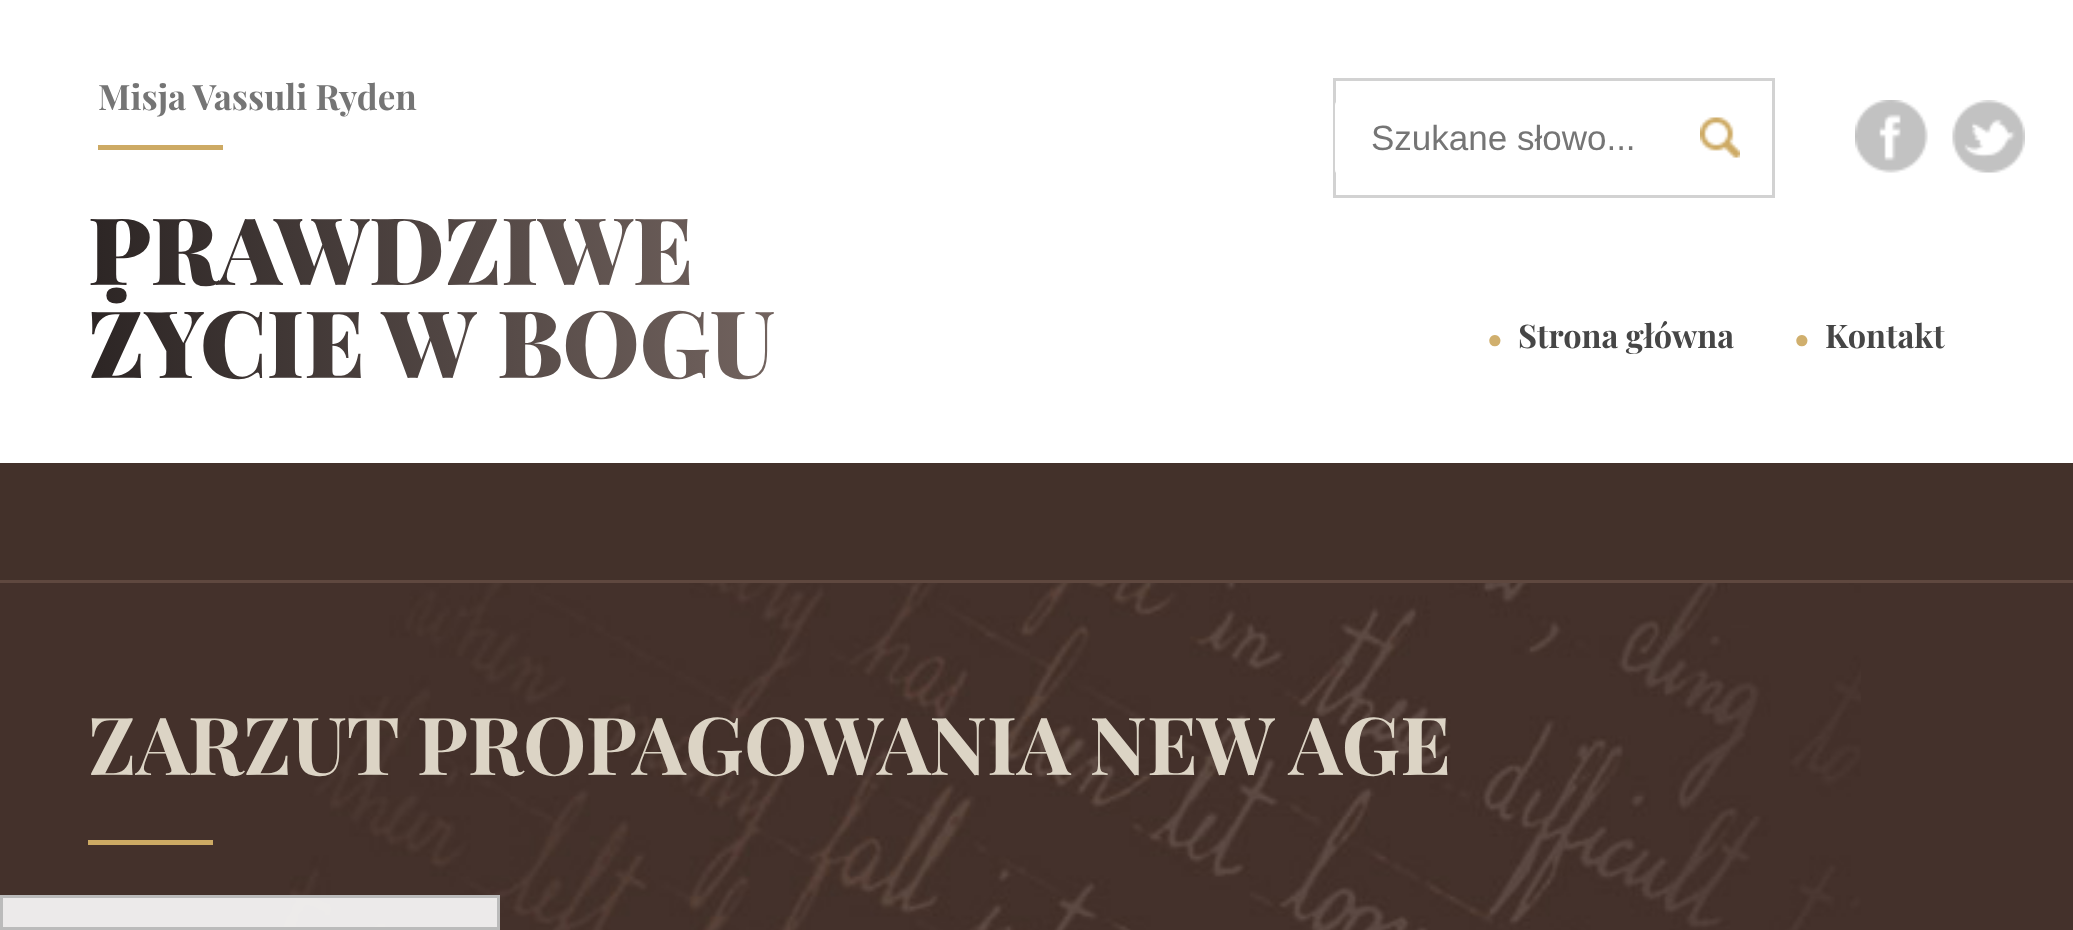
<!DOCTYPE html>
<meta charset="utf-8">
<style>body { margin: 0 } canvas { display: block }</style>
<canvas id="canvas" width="2073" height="930"></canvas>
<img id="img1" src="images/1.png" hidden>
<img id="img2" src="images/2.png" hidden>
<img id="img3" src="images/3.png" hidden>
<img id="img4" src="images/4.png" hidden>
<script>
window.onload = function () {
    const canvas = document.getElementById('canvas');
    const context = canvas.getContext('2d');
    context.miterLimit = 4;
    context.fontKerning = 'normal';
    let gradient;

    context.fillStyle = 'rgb(255, 255, 255)';
    context.fillRect(0, 0, 2073, 930);
    context.fillStyle = 'rgb(205, 170, 100)';
    context.fillRect(98, 145, 125, 5);
    context.strokeStyle = 'rgb(210, 210, 210)';
    context.lineWidth = 3;
    context.strokeRect(1334.5, 79.5, 439, 117);
    context.fillStyle = 'rgb(255, 255, 255)';
    context.beginPath();
    context.roundRect(1335, 100, 343, 75, 5);
    context.fill();
    context.drawImage(document.getElementById('img1'), 1700, 117, 40, 41);
    context.drawImage(document.getElementById('img2'), 1855, 100, 73, 73);
    context.drawImage(document.getElementById('img3'), 1952, 100, 73, 73);
    context.fillStyle = 'rgb(67, 49, 42)';
    context.fillRect(0, 463, 2073, 117);
    context.fillStyle = 'rgb(68, 49, 43)';
    context.fillRect(0, 583, 2073, 347);
    context.drawImage(document.getElementById('img4'), 284, 583, 1577, 347);
    context.fillStyle = 'rgb(95, 72, 63)';
    context.fillRect(0, 580, 2073, 3);
    context.fillStyle = 'rgb(205, 170, 100)';
    context.fillRect(88, 840, 125, 5);
    context.fillStyle = 'rgba(255, 255, 255, 0.9)';
    context.beginPath();
    context.rect(1.5, 896.5, 497, 32);
    context.fill();
    context.strokeStyle = 'rgb(187, 187, 187)';
    context.stroke();
    context.font = 'bold 35px Playfair Display';
    context.fillStyle = 'rgb(117, 117, 117)';
    context.fillText('Misja Vassuli Ryden', 98, 110);
    context.font = '900 93.25px Playfair Display';
    gradient = context.createLinearGradient(88, 293, 875, 293);
    gradient.addColorStop(0.01, 'rgb(45, 38, 37)');
    gradient.addColorStop(1, 'rgb(124, 108, 103)');
    context.fillStyle = gradient;
    context.fillText('PRAWDZIWE', 88, 285);
    context.fillText('ŻYCIE W BOGU', 88, 378);
    context.font = '35px Liberation Sans';
    context.fillStyle = 'rgb(117, 117, 117)';
    context.fillText('Szukane słowo...', 1371, 150);
    context.font = 'bold 26px Liberation Serif';
    context.fillStyle = 'rgb(208, 175, 109)';
    context.fillText('●', 1487, 348);
    context.font = 'bold 32.5px Playfair Display';
    context.fillStyle = 'rgb(70, 70, 70)';
    context.fillText('Strona główna', 1518, 348);
    context.font = 'bold 26px Liberation Serif';
    context.fillStyle = 'rgb(208, 175, 109)';
    context.fillText('●', 1794, 348);
    context.font = 'bold 32.5px Playfair Display';
    context.fillStyle = 'rgb(70, 70, 70)';
    context.fillText('Kontakt', 1825, 348);
    context.font = 'bold 80px Playfair Display';
    context.fillStyle = 'rgb(220, 212, 197)';
    context.fillText('ZARZUT PROPAGOWANIA NEW AGE', 88, 775);
};
</script>
